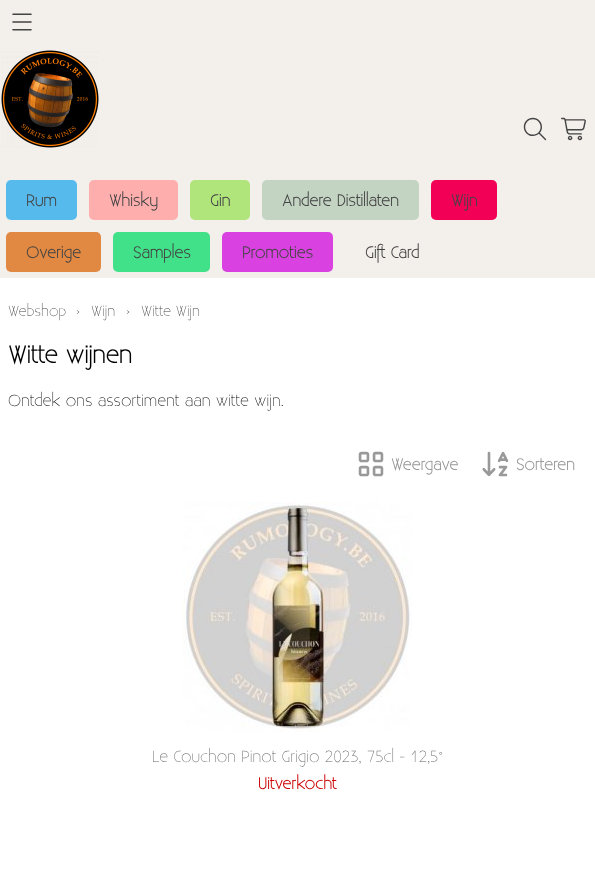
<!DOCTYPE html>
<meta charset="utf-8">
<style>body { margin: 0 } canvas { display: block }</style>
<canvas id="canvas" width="595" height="872"></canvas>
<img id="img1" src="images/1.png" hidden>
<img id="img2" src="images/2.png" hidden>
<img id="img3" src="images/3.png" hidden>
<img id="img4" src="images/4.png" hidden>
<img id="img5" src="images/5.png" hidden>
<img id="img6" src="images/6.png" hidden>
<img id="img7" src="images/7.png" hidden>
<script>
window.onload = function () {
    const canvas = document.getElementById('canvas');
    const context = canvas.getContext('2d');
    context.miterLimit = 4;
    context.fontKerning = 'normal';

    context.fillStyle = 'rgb(255, 255, 255)';
    context.fillRect(0, 0, 595, 872);
    context.fillStyle = 'rgb(243, 239, 235)';
    context.fillRect(0, 0, 595, 278);
    context.drawImage(document.getElementById('img1'), 12, 13, 20, 18);
    context.drawImage(document.getElementById('img2'), 1, 50, 98, 98);
    context.drawImage(document.getElementById('img3'), 523, 117, 24, 24);
    context.drawImage(document.getElementById('img4'), 561, 117, 25, 24);
    context.fillStyle = 'rgb(86, 186, 236)';
    context.beginPath();
    context.roundRect(6, 180, 71, 40, 5);
    context.fill();
    context.fillStyle = 'rgb(255, 174, 174)';
    context.beginPath();
    context.roundRect(89, 180, 89, 40, 5);
    context.fill();
    context.fillStyle = 'rgb(176, 229, 124)';
    context.beginPath();
    context.roundRect(190, 180, 60, 40, 5);
    context.fill();
    context.fillStyle = 'rgb(196, 212, 195)';
    context.beginPath();
    context.roundRect(262, 180, 157, 40, 5);
    context.fill();
    context.fillStyle = 'rgb(242, 0, 86)';
    context.beginPath();
    context.roundRect(431, 180, 66, 40, 5);
    context.fill();
    context.fillStyle = 'rgb(225, 137, 66)';
    context.beginPath();
    context.roundRect(6, 232, 95, 40, 5);
    context.fill();
    context.fillStyle = 'rgb(65, 225, 137)';
    context.beginPath();
    context.roundRect(113, 232, 97, 40, 5);
    context.fill();
    context.fillStyle = 'rgb(217, 65, 225)';
    context.beginPath();
    context.roundRect(222, 232, 111, 40, 5);
    context.fill();
    context.drawImage(document.getElementById('img5'), 358, 451, 26, 26);
    context.drawImage(document.getElementById('img6'), 482, 451, 27, 26);
    context.drawImage(document.getElementById('img7'), 183, 502, 229, 230);
    context.font = 'bold 16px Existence';
    context.fillStyle = 'rgb(68, 68, 68)';
    context.fillText('Rum', 26, 206);
    context.fillText('Whisky', 109, 206);
    context.fillText('Gin', 210, 206);
    context.fillText('Andere Distillaten', 282, 206);
    context.fillText('Wijn', 451, 206);
    context.fillText('Overige', 26, 258);
    context.fillText('Samples', 133, 258);
    context.fillText('Promoties', 242, 258);
    context.fillText('Gift Card', 365, 258);
    context.font = '300 14.5px Existence';
    context.fillText('Webshop', 8, 316);
    context.fillText('›', 76, 316);
    context.fillText('Wijn', 91, 316);
    context.fillText('›', 126, 316);
    context.fillText('Witte Wijn', 141, 316);
    context.font = 'bold 24px Existence';
    context.fillStyle = 'rgb(0, 0, 0)';
    context.fillText('Witte wijnen', 8, 363);
    context.font = '300 16px Existence';
    context.fillText('Ontdek ons assortiment aan witte wijn.', 8, 406);
    context.font = 'bold 16px Existence';
    context.fillStyle = 'rgb(153, 153, 153)';
    context.fillText('Weergave', 391, 470);
    context.fillText('Sorteren', 516, 470);
    context.font = '300 16px Existence';
    context.fillStyle = 'rgb(102, 102, 102)';
    context.fillText('Le Couchon Pinot Grigio 2023, 75cl - 12,5°', 152, 762);
    context.font = 'bold 16px Existence';
    context.fillStyle = 'rgb(204, 0, 0)';
    context.fillText('Uitverkocht', 258, 789);
};
</script>
